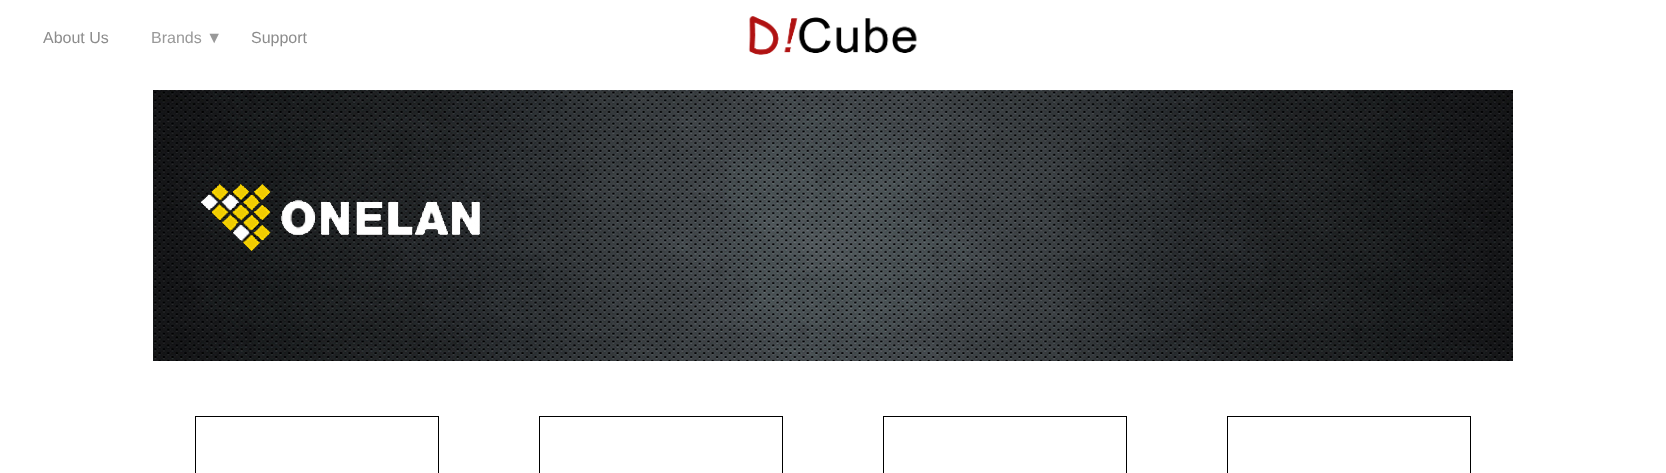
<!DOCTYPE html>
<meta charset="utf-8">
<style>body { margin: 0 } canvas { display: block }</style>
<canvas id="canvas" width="1666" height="473"></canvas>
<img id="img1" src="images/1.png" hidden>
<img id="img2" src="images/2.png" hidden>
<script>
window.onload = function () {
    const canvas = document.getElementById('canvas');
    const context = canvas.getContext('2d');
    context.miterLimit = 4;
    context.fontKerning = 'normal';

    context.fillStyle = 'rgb(255, 255, 255)';
    context.fillRect(0, 0, 1666, 473);
    context.drawImage(document.getElementById('img1'), 748, 16, 169, 39);
    context.drawImage(document.getElementById('img2'), 153, 90, 1360, 271);
    context.strokeStyle = 'rgb(0, 0, 0)';
    context.strokeRect(195.5, 416.5, 243, 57);
    context.strokeRect(539.5, 416.5, 243, 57);
    context.strokeRect(883.5, 416.5, 243, 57);
    context.strokeRect(1227.5, 416.5, 243, 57);
    context.font = '16px Liberation Sans';
    context.fillStyle = 'rgb(140, 140, 140)';
    context.fillText('About Us', 43, 43);
    context.fillStyle = 'rgb(153, 153, 153)';
    context.fillText('Brands ▼', 151, 43);
    context.fillStyle = 'rgb(140, 140, 140)';
    context.fillText('Support', 251, 43);
};
</script>
